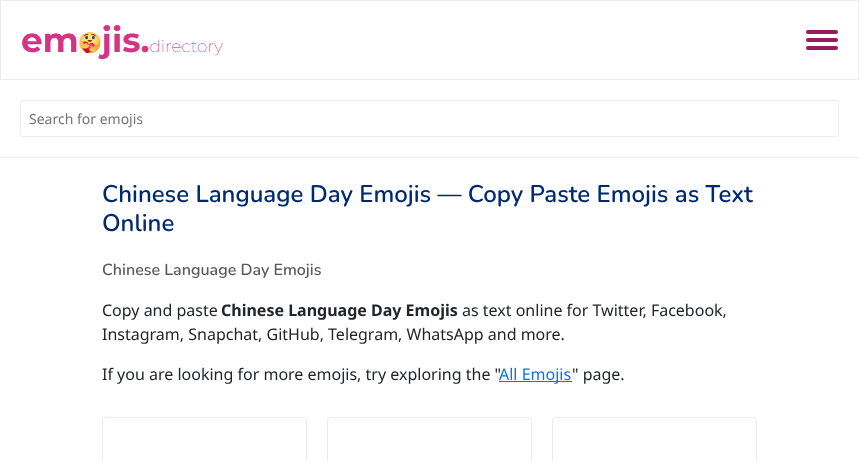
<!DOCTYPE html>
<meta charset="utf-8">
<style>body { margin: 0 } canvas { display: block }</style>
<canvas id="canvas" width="859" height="461"></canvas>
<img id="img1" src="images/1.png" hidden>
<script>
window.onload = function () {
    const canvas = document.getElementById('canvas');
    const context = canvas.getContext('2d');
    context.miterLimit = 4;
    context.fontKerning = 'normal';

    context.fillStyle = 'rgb(255, 255, 255)';
    context.fillRect(0, 0, 859, 461);
    context.strokeStyle = 'rgb(236, 236, 236)';
    context.strokeRect(0.5, 0.5, 858, 79);
    context.drawImage(document.getElementById('img1'), 22, 25, 201, 35);
    context.fillStyle = 'rgb(150, 28, 91)';
    context.beginPath();
    context.roundRect(806, 30, 32, 4, 2);
    context.fill();
    context.beginPath();
    context.roundRect(806, 38, 32, 4, 2);
    context.fill();
    context.beginPath();
    context.roundRect(806, 46, 32, 4, 2);
    context.fill();
    context.fillStyle = 'rgb(236, 236, 236)';
    context.fillRect(0, 157, 859, 1);
    context.beginPath();
    context.roundRect(20.5, 100.5, 818, 36, 2.5);
    context.stroke();
    context.fillStyle = 'rgb(13, 110, 253)';
    context.fillRect(499, 381, 73, 1);
    context.beginPath();
    context.roundRect(102.5, 417.5, 204, 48, 3.5);
    context.stroke();
    context.beginPath();
    context.roundRect(327.5, 417.5, 204, 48, 3.5);
    context.stroke();
    context.beginPath();
    context.roundRect(552.5, 417.5, 204, 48, 3.5);
    context.stroke();
    context.font = '14px Noto Sans';
    context.fillStyle = 'rgb(117, 117, 117)';
    context.fillText('Search for emojis', 29, 124);
    context.font = '600 24px Nunito';
    context.fillStyle = 'rgb(1, 41, 112)';
    context.fillText('Chinese Language Day Emojis ― Copy Paste Emojis as Text', 102, 202);
    context.fillText('Online', 102, 231);
    context.font = '600 16px Nunito';
    context.fillStyle = 'rgb(89, 92, 95)';
    context.fillText('Chinese Language Day Emojis', 102, 275);
    context.font = '16px Noto Sans';
    context.fillStyle = 'rgb(33, 37, 41)';
    context.fillText('Copy and paste', 102, 316);
    context.font = 'bold 16px Noto Sans';
    context.fillText('Chinese Language Day Emojis', 221, 316);
    context.font = '16px Noto Sans';
    context.fillText('as text online for Twitter, Facebook,', 462, 316);
    context.fillText('Instagram, Snapchat, GitHub, Telegram, WhatsApp and more.', 102, 340);
    context.fillText('If you are looking for more emojis, try exploring the "', 102, 380);
    context.fillStyle = 'rgb(13, 110, 253)';
    context.fillText('All Emojis', 499, 380);
    context.fillStyle = 'rgb(33, 37, 41)';
    context.fillText('" page.', 572, 380);
};
</script>
